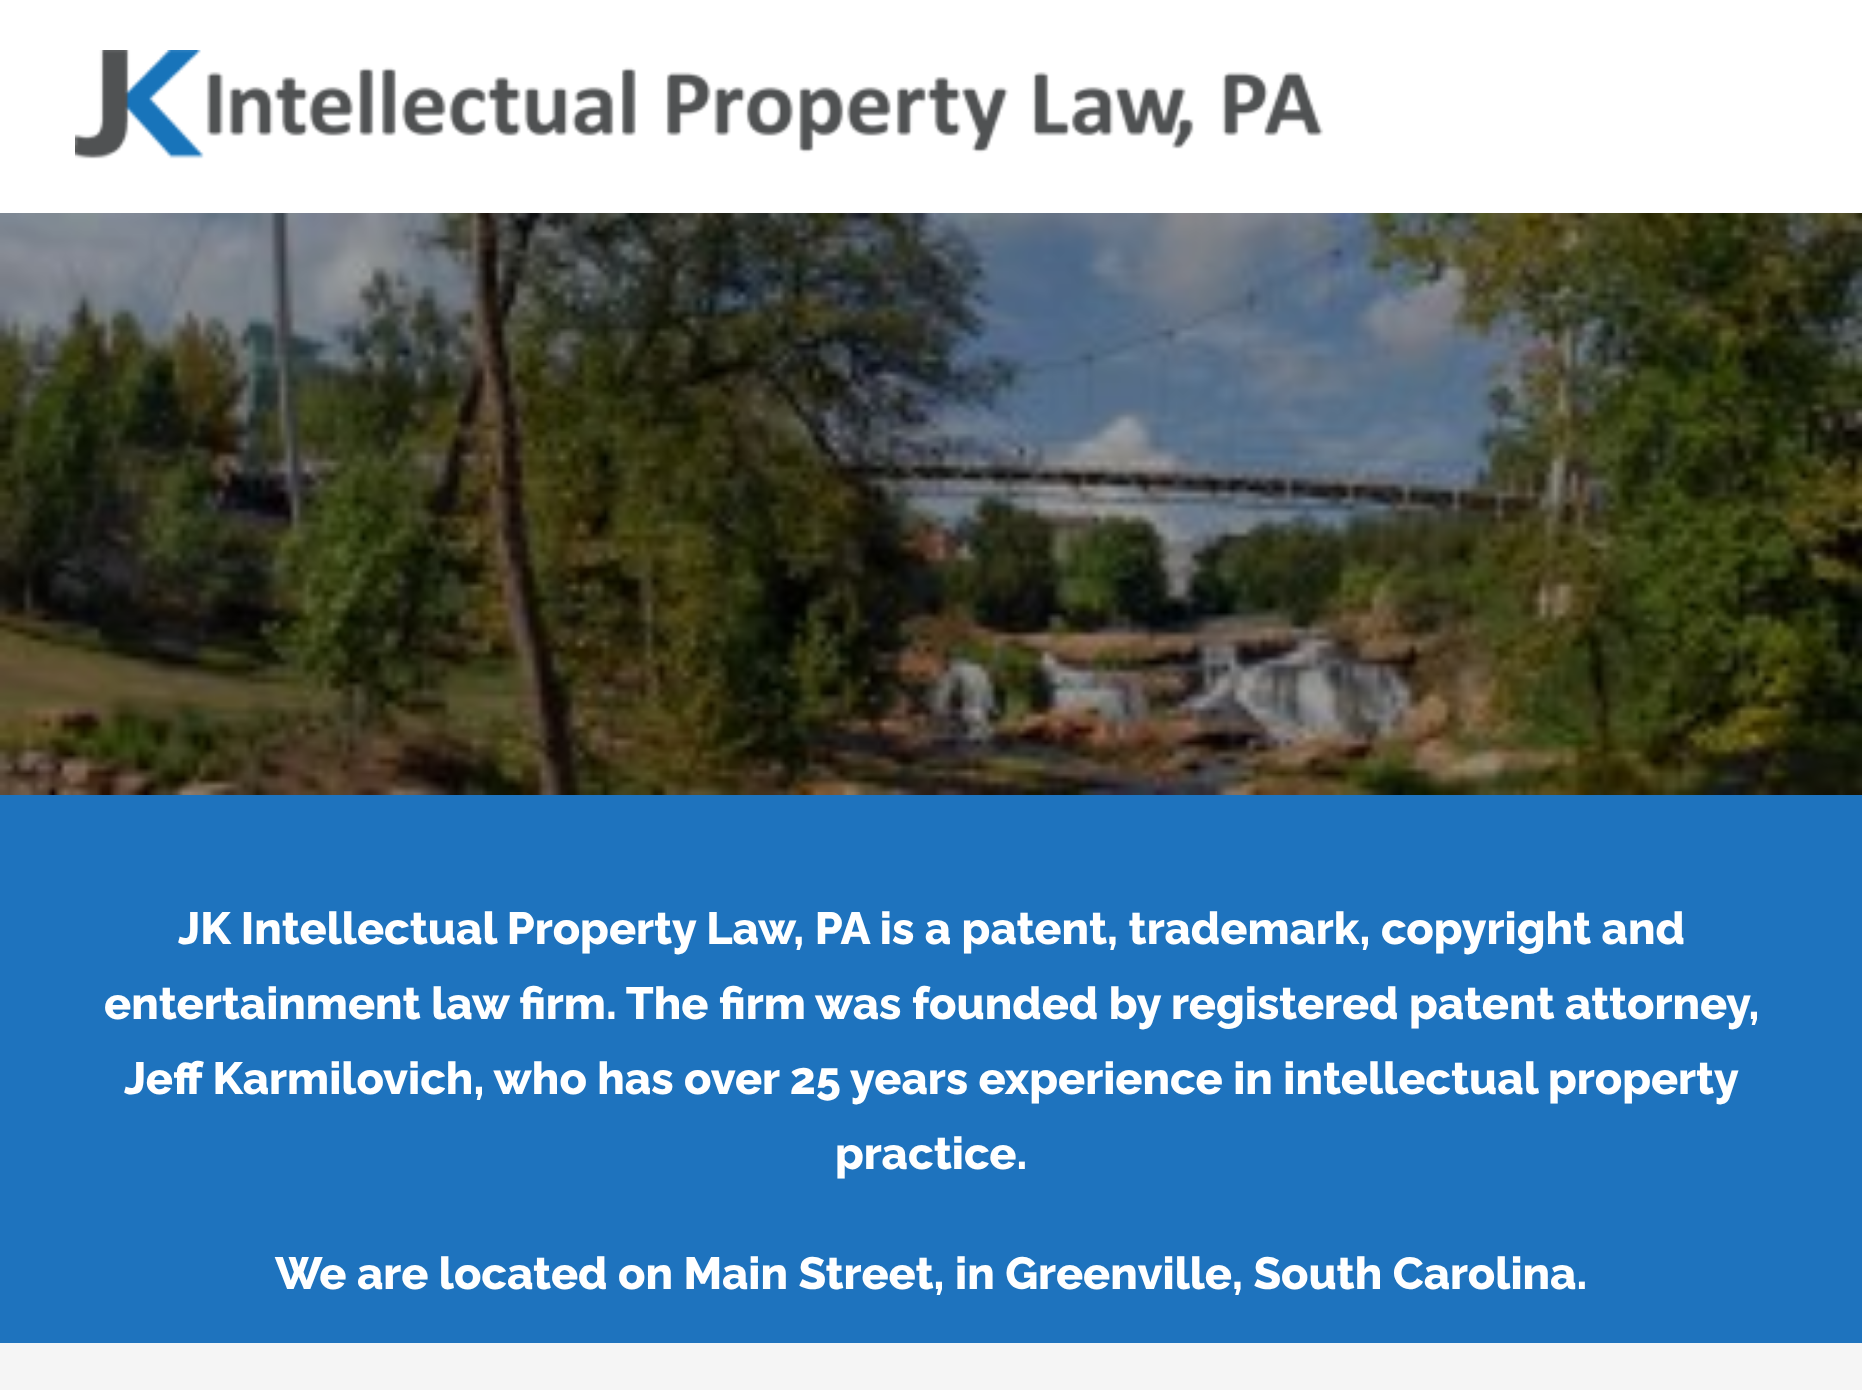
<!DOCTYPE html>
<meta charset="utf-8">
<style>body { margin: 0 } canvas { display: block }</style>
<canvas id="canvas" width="1862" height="1390"></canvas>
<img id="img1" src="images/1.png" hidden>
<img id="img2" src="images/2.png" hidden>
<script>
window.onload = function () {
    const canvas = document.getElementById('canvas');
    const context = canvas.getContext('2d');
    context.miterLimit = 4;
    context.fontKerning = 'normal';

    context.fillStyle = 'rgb(255, 255, 255)';
    context.fillRect(0, 0, 1862, 1390);
    context.drawImage(document.getElementById('img1'), 75, 50, 1249, 109);
    context.drawImage(document.getElementById('img2'), 0, 213, 1862, 582);
    context.fillStyle = 'rgb(30, 115, 190)';
    context.fillRect(0, 795, 1862, 548);
    context.fillStyle = 'rgb(245, 245, 245)';
    context.fillRect(0, 1343, 1862, 47);
    context.font = '100 45px Raleway';
    context.fillStyle = 'rgb(255, 255, 255)';
    context.fillText('JK Intellectual Property Law, PA is a patent, trademark, copyright and', 178, 944);
    context.fillText('entertainment law firm. The firm was founded by registered patent attorney,', 104, 1019);
    context.fillText('Jeff Karmilovich, who has over 25 years experience in intellectual property', 124, 1094);
    context.fillText('practice.', 835, 1169);
    context.fillText('We are located on Main Street, in Greenville, South Carolina.', 275, 1289);
};
</script>
